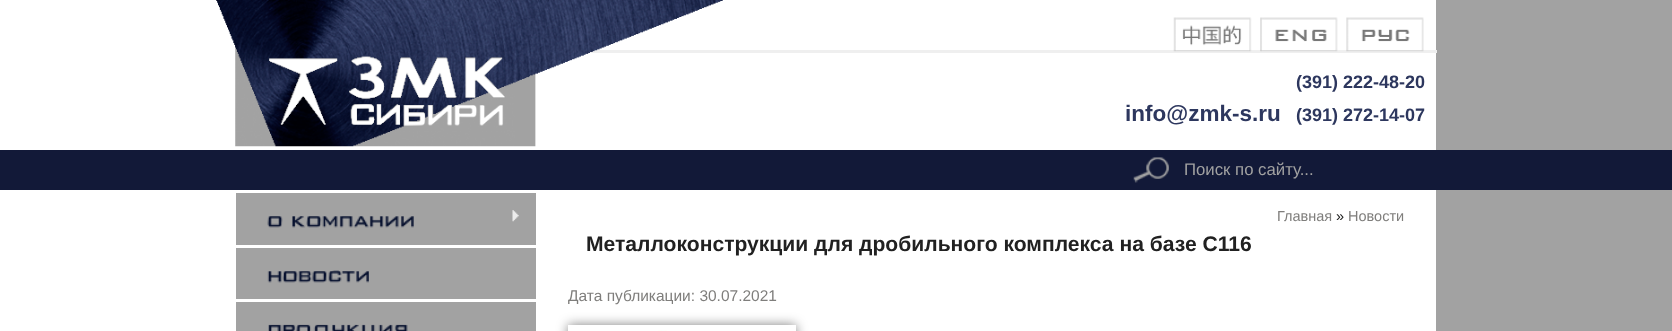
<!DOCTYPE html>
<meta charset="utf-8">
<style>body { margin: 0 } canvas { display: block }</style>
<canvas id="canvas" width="1672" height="331"></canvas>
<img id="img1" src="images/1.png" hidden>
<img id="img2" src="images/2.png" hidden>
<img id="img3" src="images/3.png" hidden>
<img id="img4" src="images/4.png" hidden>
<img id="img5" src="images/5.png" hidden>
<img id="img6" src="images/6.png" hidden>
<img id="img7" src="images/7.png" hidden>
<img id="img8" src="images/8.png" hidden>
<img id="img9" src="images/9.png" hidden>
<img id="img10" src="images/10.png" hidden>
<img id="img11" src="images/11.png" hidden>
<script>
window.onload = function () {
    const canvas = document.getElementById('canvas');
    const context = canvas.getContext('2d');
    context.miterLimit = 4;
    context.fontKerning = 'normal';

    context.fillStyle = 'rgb(255, 255, 255)';
    context.fillRect(0, 0, 1672, 331);
    context.fillStyle = 'rgb(162, 162, 162)';
    context.fillRect(1436, 0, 236, 331);
    context.fillStyle = 'rgb(239, 239, 239)';
    context.fillRect(590, 50, 847, 3);
    context.drawImage(document.getElementById('img1'), 216, 0, 507, 147);
    context.drawImage(document.getElementById('img2'), 1173, 17, 79, 35);
    context.drawImage(document.getElementById('img3'), 1260, 17, 78, 35);
    context.drawImage(document.getElementById('img4'), 1346, 17, 78, 35);
    context.fillStyle = 'rgb(18, 25, 56)';
    context.fillRect(0, 150, 1672, 40);
    context.drawImage(document.getElementById('img5'), 1133, 157, 36, 26);
    context.fillStyle = 'rgb(162, 162, 162)';
    context.fillRect(236, 193, 300, 138);
    context.drawImage(document.getElementById('img6'), 267, 216, 16, 12);
    context.drawImage(document.getElementById('img7'), 292, 216, 122, 12);
    context.drawImage(document.getElementById('img8'), 512, 210, 7, 12);
    context.fillStyle = 'rgb(255, 255, 255)';
    context.fillRect(236, 245, 303, 3);
    context.drawImage(document.getElementById('img9'), 267, 270, 102, 13);
    context.fillRect(236, 299, 303, 3);
    context.drawImage(document.getElementById('img10'), 268, 324, 140, 7);
    context.save();
    context.beginPath();
    context.moveTo(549, 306);
    context.lineTo(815, 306);
    context.lineTo(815, 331);
    context.lineTo(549, 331);
    context.closePath();
    context.moveTo(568, 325);
    context.lineTo(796, 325);
    context.lineTo(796, 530);
    context.lineTo(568, 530);
    context.closePath();
    context.clip('evenodd');
    context.fillStyle = 'rgba(0, 0, 0, 0.5)';
    context.filter = 'blur(6px)';
    context.beginPath();
    context.rect(568, 325, 228, 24);
    context.fill();
    context.filter = 'none';
    context.restore();
    context.drawImage(document.getElementById('img11'), 658, 330, 9, 1);
    context.font = 'bold 18px Liberation Sans';
    context.fillStyle = 'rgb(45, 55, 94)';
    context.fillText('(391) 222-48-20', 1296, 88);
    context.font = 'bold 22.5px Liberation Sans';
    context.fillText('info@zmk-s.ru', 1125, 121);
    context.font = 'bold 18px Liberation Sans';
    context.fillText('(391) 272-14-07', 1296, 121);
    context.font = '16.75px Liberation Sans';
    context.fillStyle = 'rgb(161, 161, 161)';
    context.fillText('Поиск по сайту...', 1184, 175);
    context.font = '14.5px Liberation Sans';
    context.fillStyle = 'rgb(127, 126, 124)';
    context.fillText('Главная', 1277, 221);
    context.fillStyle = 'rgb(33, 33, 33)';
    context.fillText('»', 1336, 221);
    context.fillStyle = 'rgb(127, 126, 124)';
    context.fillText('Новости', 1348, 221);
    context.font = 'bold 21.1px Liberation Sans';
    context.fillStyle = 'rgb(33, 33, 33)';
    context.fillText('Металлоконструкции для дробильного комплекса на базе C116', 586, 251);
    context.font = '15.5px Liberation Sans';
    context.fillStyle = 'rgb(127, 126, 124)';
    context.fillText('Дата публикации: 30.07.2021', 568, 301);
};
</script>
